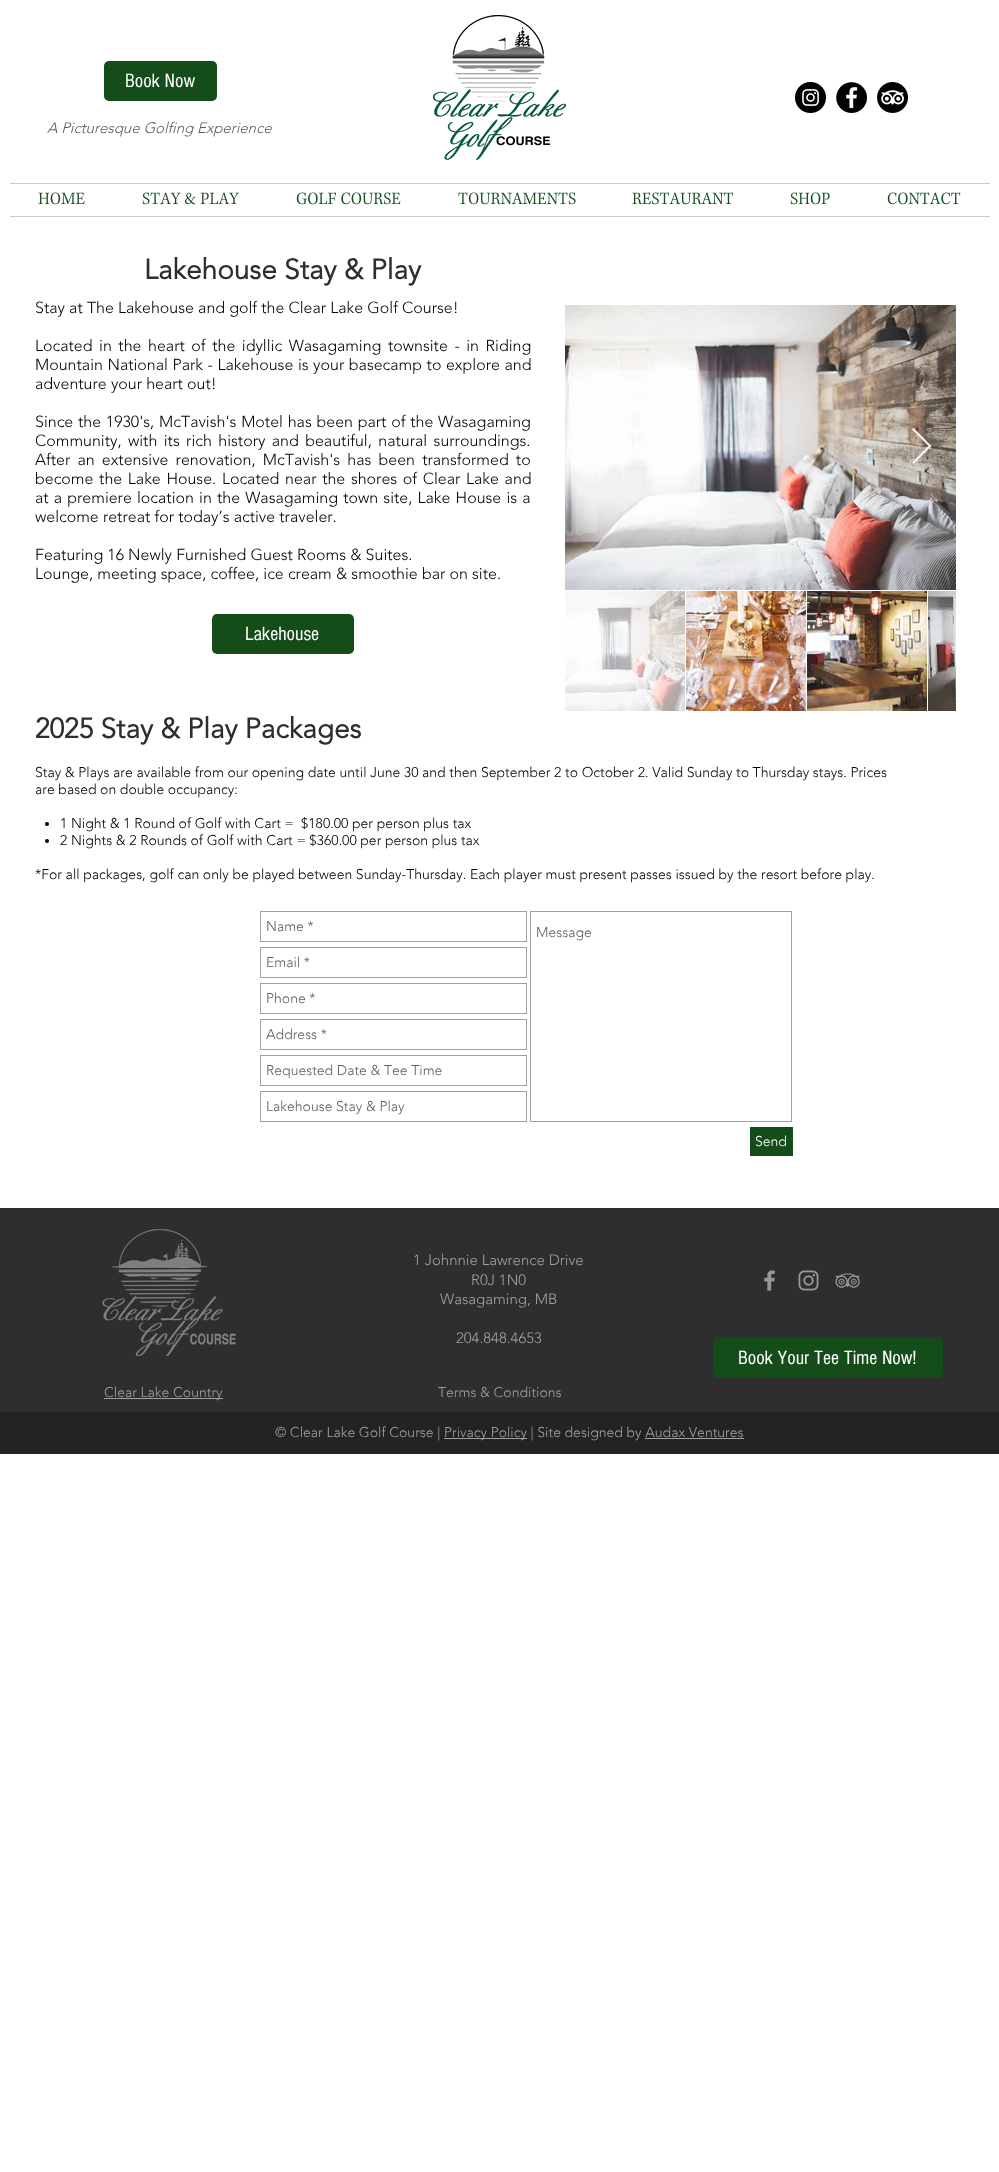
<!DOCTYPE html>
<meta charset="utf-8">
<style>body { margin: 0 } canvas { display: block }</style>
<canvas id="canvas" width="999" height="2172"></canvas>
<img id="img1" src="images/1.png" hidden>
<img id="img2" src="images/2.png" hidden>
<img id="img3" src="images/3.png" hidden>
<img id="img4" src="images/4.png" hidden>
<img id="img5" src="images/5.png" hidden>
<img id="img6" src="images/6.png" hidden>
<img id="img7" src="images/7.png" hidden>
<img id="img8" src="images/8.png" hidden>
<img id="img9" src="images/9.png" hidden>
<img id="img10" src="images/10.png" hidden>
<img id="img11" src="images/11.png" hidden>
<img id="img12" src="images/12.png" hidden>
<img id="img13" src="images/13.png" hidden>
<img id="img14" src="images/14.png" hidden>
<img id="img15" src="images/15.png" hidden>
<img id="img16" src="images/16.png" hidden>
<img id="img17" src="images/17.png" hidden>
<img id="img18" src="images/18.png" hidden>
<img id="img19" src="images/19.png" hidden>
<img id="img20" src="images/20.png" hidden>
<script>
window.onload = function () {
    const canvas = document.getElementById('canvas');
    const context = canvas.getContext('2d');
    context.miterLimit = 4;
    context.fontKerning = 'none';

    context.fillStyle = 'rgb(255, 255, 255)';
    context.fillRect(0, 0, 999, 2172);
    context.fillStyle = 'rgb(20, 77, 26)';
    context.beginPath();
    context.roundRect(104, 61, 113, 40, 5);
    context.fill();
    context.drawImage(document.getElementById('img1'), 433, 15, 133, 145);
    context.drawImage(document.getElementById('img2'), 795, 82, 31, 31);
    context.drawImage(document.getElementById('img3'), 836, 82, 31, 31);
    context.drawImage(document.getElementById('img4'), 877, 82, 31, 31);
    context.fillStyle = 'rgb(202, 202, 202)';
    context.fillRect(10, 183, 980, 1);
    context.fillRect(10, 216, 980, 1);
    context.drawImage(document.getElementById('img5'), 38, 192, 47, 13);
    context.drawImage(document.getElementById('img6'), 142, 192, 97, 13);
    context.drawImage(document.getElementById('img7'), 296, 192, 105, 13);
    context.drawImage(document.getElementById('img8'), 458, 192, 118, 13);
    context.drawImage(document.getElementById('img9'), 632, 192, 101, 13);
    context.drawImage(document.getElementById('img10'), 790, 192, 40, 13);
    context.drawImage(document.getElementById('img11'), 887, 192, 74, 13);
    context.drawImage(document.getElementById('img12'), 565, 305, 391, 285);
    context.fillStyle = 'rgba(255, 255, 255, 0.9)';
    context.beginPath();
    context.moveTo(912, 429.5);
    context.lineTo(913.5, 428);
    context.lineTo(931.5, 446);
    context.lineTo(913.5, 464);
    context.lineTo(912, 462.5);
    context.lineTo(928.5, 446);
    context.closePath();
    context.fill();
    context.drawImage(document.getElementById('img13'), 565, 591, 120, 120);
    context.drawImage(document.getElementById('img14'), 686, 591, 120, 120);
    context.drawImage(document.getElementById('img15'), 807, 591, 120, 120);
    context.drawImage(document.getElementById('img16'), 928, 591, 28, 120);
    context.fillStyle = 'rgb(20, 77, 26)';
    context.beginPath();
    context.roundRect(212, 614, 142, 40, 5);
    context.fill();
    context.fillStyle = 'rgb(0, 0, 0)';
    context.beginPath();
    context.arc(47, 824, 2, 0, 2 * Math.PI);
    context.fill();
    context.beginPath();
    context.arc(47, 841, 2, 0, 2 * Math.PI);
    context.fill();
    context.strokeStyle = 'rgb(160, 160, 159)';
    context.strokeRect(260.5, 911.5, 266, 30);
    context.strokeRect(530.5, 911.5, 261, 210);
    context.strokeRect(260.5, 947.5, 266, 30);
    context.strokeRect(260.5, 983.5, 266, 30);
    context.strokeRect(260.5, 1019.5, 266, 30);
    context.strokeRect(260.5, 1055.5, 266, 30);
    context.strokeRect(260.5, 1091.5, 266, 30);
    context.fillStyle = 'rgb(20, 77, 26)';
    context.fillRect(750, 1127, 43, 29);
    context.fillStyle = 'rgb(47, 46, 46)';
    context.fillRect(0, 1208, 999, 204);
    context.drawImage(document.getElementById('img17'), 102, 1229, 134, 127);
    context.drawImage(document.getElementById('img18'), 764, 1270, 11, 21);
    context.drawImage(document.getElementById('img19'), 798, 1270, 21, 21);
    context.drawImage(document.getElementById('img20'), 835, 1273, 25, 15);
    context.fillStyle = 'rgb(20, 77, 26)';
    context.beginPath();
    context.roundRect(713, 1338, 230, 40, 5);
    context.fill();
    context.fillStyle = 'rgb(160, 160, 159)';
    context.fillRect(104, 1398, 119, 1);
    context.fillStyle = 'rgb(36, 35, 35)';
    context.fillRect(0, 1412, 999, 42);
    context.fillStyle = 'rgb(160, 160, 159)';
    context.fillRect(444, 1438, 83, 1);
    context.fillRect(645, 1438, 99, 1);
    context.font = '20px "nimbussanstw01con"';
    context.fillStyle = 'rgb(255, 255, 255)';
    context.fillText('Book Now', 125, 87);
    context.font = 'italic 300 15px "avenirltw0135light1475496"';
    context.fillStyle = 'rgb(96, 94, 94)';
    context.fillText('A Picturesque Golfing Experience', 47, 133);
    context.font = 'bold 28px "avenirltw0135light1475496"';
    context.fillStyle = 'rgb(47, 46, 46)';
    context.fillText('Lakehouse Stay & Play', 144, 279);
    context.font = '300 16px "avenirltw0135light1475496"';
    context.fillStyle = 'rgb(0, 0, 0)';
    context.fillText('Stay at The Lakehouse and golf the Clear Lake Golf Course!', 35, 313);
    context.wordSpacing = '2.4px';
    context.fillText('Located in the heart of the idyllic Wasagaming townsite - in Riding', 35, 351);
    context.wordSpacing = '0.4px';
    context.fillText('Mountain National Park - Lakehouse is your basecamp to explore and', 35, 370);
    context.wordSpacing = '0px';
    context.fillText('adventure your heart out!', 35, 389);
    context.wordSpacing = '0.6px';
    context.fillText('Since the 1930\'s, McTavish\'s Motel has been part of the Wasagaming', 35, 427);
    context.wordSpacing = '2.25px';
    context.fillText('Community, with its rich history and beautiful, natural surroundings.', 35, 446);
    context.wordSpacing = '3px';
    context.fillText('After an extensive renovation, McTavish\'s has been transformed to', 35, 465);
    context.wordSpacing = '1.5px';
    context.fillText('become the Lake House. Located near the shores of Clear Lake and', 35, 484);
    context.wordSpacing = '1px';
    context.fillText('at a premiere location in the Wasagaming town site, Lake House is a', 35, 503);
    context.wordSpacing = '0px';
    context.fillText('welcome retreat for today’s active traveler.', 35, 522);
    context.fillText('Featuring 16 Newly Furnished Guest Rooms & Suites.', 35, 560);
    context.fillText('Lounge, meeting space, coffee, ice cream & smoothie bar on site.', 35, 579);
    context.font = '20px "nimbussanstw01con"';
    context.fillStyle = 'rgb(255, 255, 255)';
    context.fillText('Lakehouse', 245, 640);
    context.font = 'bold 28px "avenirltw0135light1475496"';
    context.fillStyle = 'rgb(47, 46, 46)';
    context.fillText('2025 Stay & Play Packages', 35, 738);
    context.font = '300 14px "avenirltw0135light1475496"';
    context.fillStyle = 'rgb(0, 0, 0)';
    context.fillText('Stay & Plays are available from our opening date until June 30 and then September 2 to October 2. Valid Sunday to Thursday stays. Prices', 35, 777);
    context.fillText('are based on double occupancy:', 35, 794);
    context.fillText('1 Night & 1 Round of Golf with Cart =  $180.00 per person plus tax', 60, 828);
    context.fillText('2 Nights & 2 Rounds of Golf with Cart = $360.00 per person plus tax', 60, 845);
    context.fillText('*For all packages, golf can only be played between Sunday-Thursday. Each player must present passes issued by the resort before play.', 35, 879);
    context.fillStyle = 'rgb(96, 94, 94)';
    context.fillText('Name *', 266, 931);
    context.fillText('Message', 536, 937);
    context.fillText('Email *', 266, 967);
    context.fillText('Phone *', 266, 1003);
    context.fillText('Address *', 266, 1039);
    context.fillText('Requested Date & Tee Time', 266, 1075);
    context.fillText('Lakehouse Stay & Play', 266, 1111);
    context.fillStyle = 'rgb(255, 255, 255)';
    context.fillText('Send', 755, 1146);
    context.font = '300 15px "avenirltw0135light1475496"';
    context.fillStyle = 'rgb(160, 160, 159)';
    context.fillText('1 Johnnie Lawrence Drive', 413, 1265);
    context.fillText('R0J 1N0', 471, 1285);
    context.fillText('Wasagaming, MB', 440, 1304);
    context.fillText('204.848.4653', 456, 1343);
    context.font = '20px "nimbussanstw01con"';
    context.fillStyle = 'rgb(255, 255, 255)';
    context.fillText('Book Your Tee Time Now!', 738, 1364);
    context.font = '300 14px "avenirltw0135light1475496"';
    context.fillStyle = 'rgb(160, 160, 159)';
    context.fillText('Clear Lake Country', 104, 1397);
    context.fillText('Terms & Conditions', 438, 1397);
    context.fillText('© Clear Lake Golf Course |', 275, 1437);
    context.fillText('Privacy Policy | Site designed by Audax Ventures', 444, 1437);
};
</script>
